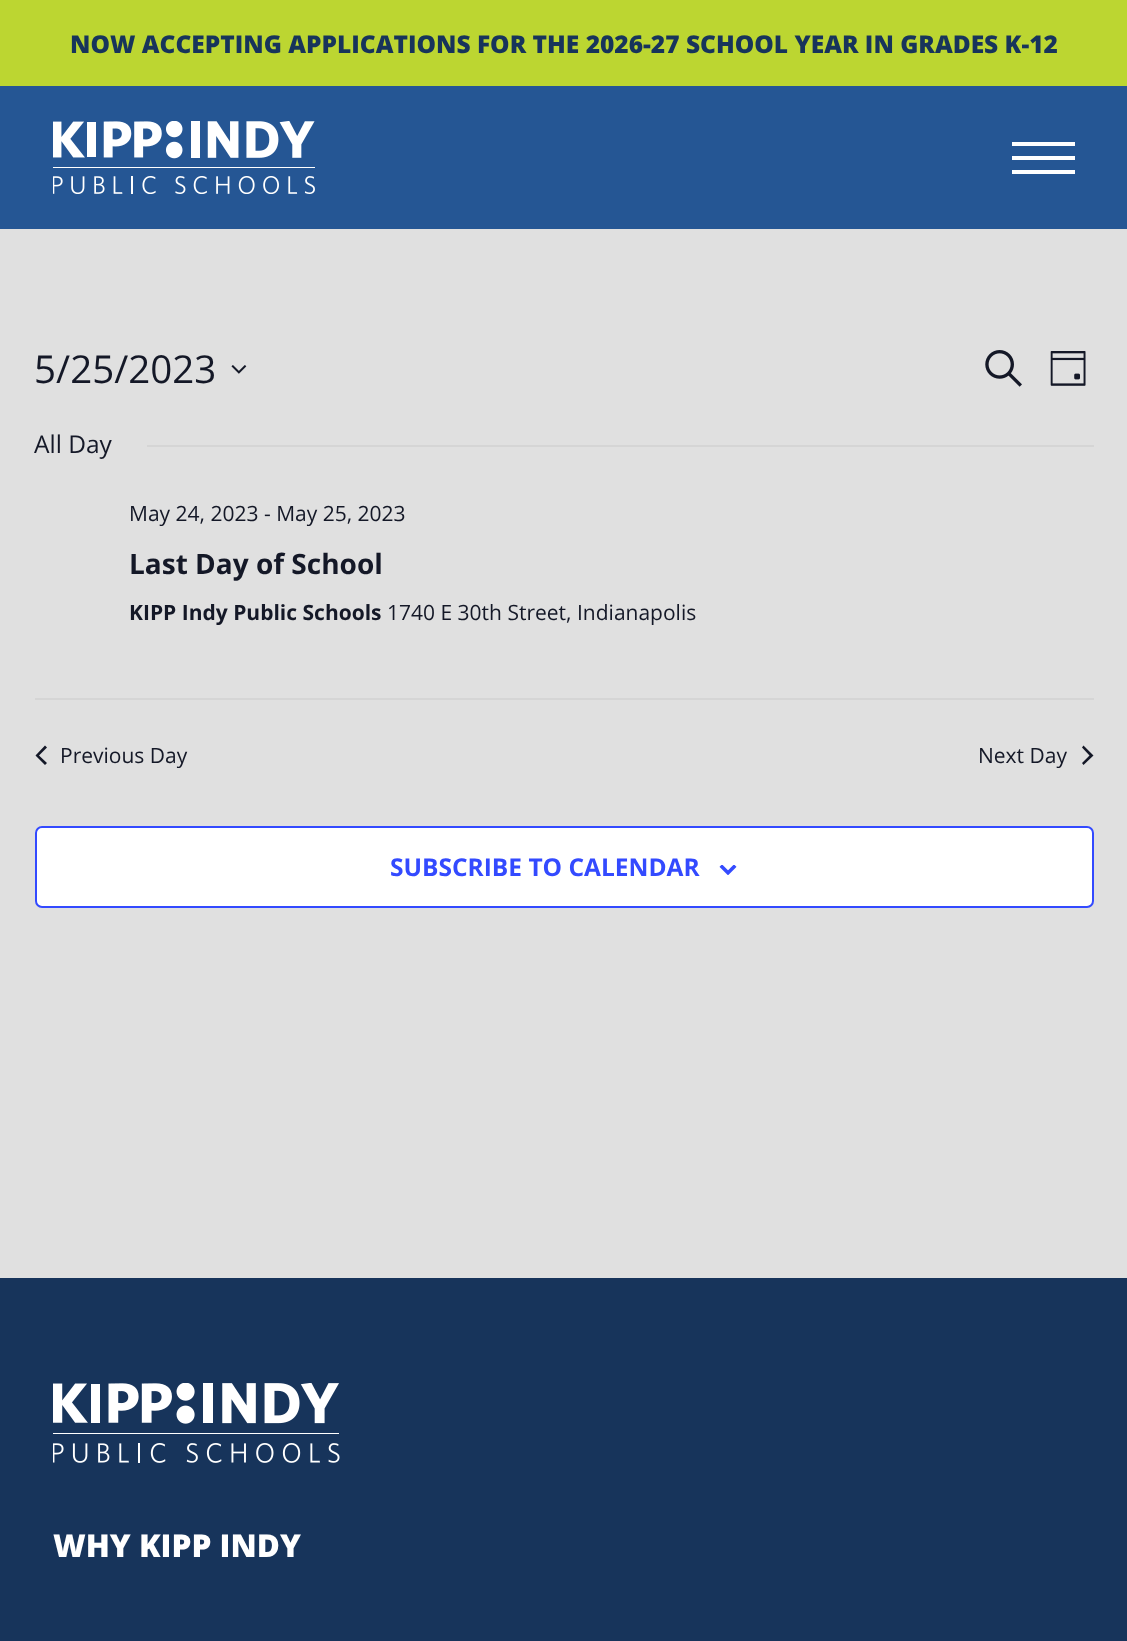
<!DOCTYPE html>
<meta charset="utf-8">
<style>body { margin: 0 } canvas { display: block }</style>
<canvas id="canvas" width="1127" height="1641"></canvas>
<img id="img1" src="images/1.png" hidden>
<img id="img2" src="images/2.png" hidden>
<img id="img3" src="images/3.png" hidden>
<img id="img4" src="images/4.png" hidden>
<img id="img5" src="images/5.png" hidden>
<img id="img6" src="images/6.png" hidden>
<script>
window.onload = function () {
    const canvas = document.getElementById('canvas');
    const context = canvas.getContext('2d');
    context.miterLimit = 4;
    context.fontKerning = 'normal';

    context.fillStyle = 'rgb(224, 224, 224)';
    context.fillRect(0, 0, 1127, 1641);
    context.fillStyle = 'rgb(37, 86, 148)';
    context.fillRect(0, 86, 1127, 143);
    context.fillStyle = 'rgb(188, 214, 49)';
    context.fillRect(0, 0, 1127, 86);
    context.drawImage(document.getElementById('img1'), 53, 121, 262, 73);
    context.fillStyle = 'rgb(255, 255, 255)';
    context.fillRect(1012, 142, 63, 4);
    context.fillRect(1012, 156, 63, 4);
    context.fillRect(1012, 170, 63, 4);
    context.drawImage(document.getElementById('img2'), 231, 365, 16, 9);
    context.drawImage(document.getElementById('img3'), 985, 350, 37, 37);
    context.drawImage(document.getElementById('img4'), 1050, 351, 36, 35);
    context.fillStyle = 'rgb(213, 213, 213)';
    context.fillRect(147, 445, 947, 2);
    context.fillRect(35, 698, 1059, 2);
    context.fillStyle = 'rgb(20, 24, 39)';
    context.beginPath();
    context.moveTo(47, 763);
    context.lineTo(45, 765);
    context.lineTo(35.5, 755.5);
    context.lineTo(45, 745.5);
    context.lineTo(47, 747.5);
    context.lineTo(39, 755.5);
    context.closePath();
    context.fill();
    context.beginPath();
    context.moveTo(1082, 747.5);
    context.lineTo(1083.5, 745.5);
    context.lineTo(1093.5, 755.5);
    context.lineTo(1083.5, 765);
    context.lineTo(1082, 763);
    context.lineTo(1089.5, 755.5);
    context.closePath();
    context.fill();
    context.fillStyle = 'rgb(255, 255, 255)';
    context.beginPath();
    context.roundRect(36, 827, 1057, 80, 6);
    context.fill();
    context.strokeStyle = 'rgb(51, 74, 255)';
    context.lineWidth = 2;
    context.stroke();
    context.drawImage(document.getElementById('img5'), 719, 865, 18, 10);
    context.fillStyle = 'rgb(23, 52, 91)';
    context.fillRect(0, 1278, 1127, 363);
    context.drawImage(document.getElementById('img6'), 53, 1383, 287, 80);
    context.font = '800 24.5px Open Sans';
    context.fillText('NOW ACCEPTING APPLICATIONS FOR THE 2026-27 SCHOOL YEAR IN GRADES K-12', 70, 53);
    context.font = '38.5px Open Sans';
    context.fillStyle = 'rgb(20, 24, 39)';
    context.fillText('5/25/2023', 34, 383);
    context.font = '24.5px Open Sans';
    context.fillText('All Day', 34, 453);
    context.font = '21px Open Sans';
    context.fillText('May 24, 2023 - May 25, 2023', 129, 521);
    context.font = 'bold 28px Open Sans';
    context.fillText('Last Day of School', 129, 574);
    context.font = 'bold 21px Open Sans';
    context.fillText('KIPP Indy Public Schools', 129, 620);
    context.font = '21px Open Sans';
    context.fillText('1740 E 30th Street, Indianapolis', 387, 620);
    context.fillText('Previous Day', 60, 763);
    context.fillText('Next Day', 978, 763);
    context.font = 'bold 24.5px Open Sans';
    context.fillStyle = 'rgb(51, 74, 255)';
    context.fillText('SUBSCRIBE TO CALENDAR', 390, 876);
    context.font = '800 31.5px Open Sans';
    context.fillStyle = 'rgb(255, 255, 255)';
    context.fillText('WHY KIPP INDY', 53, 1557);
};
</script>
